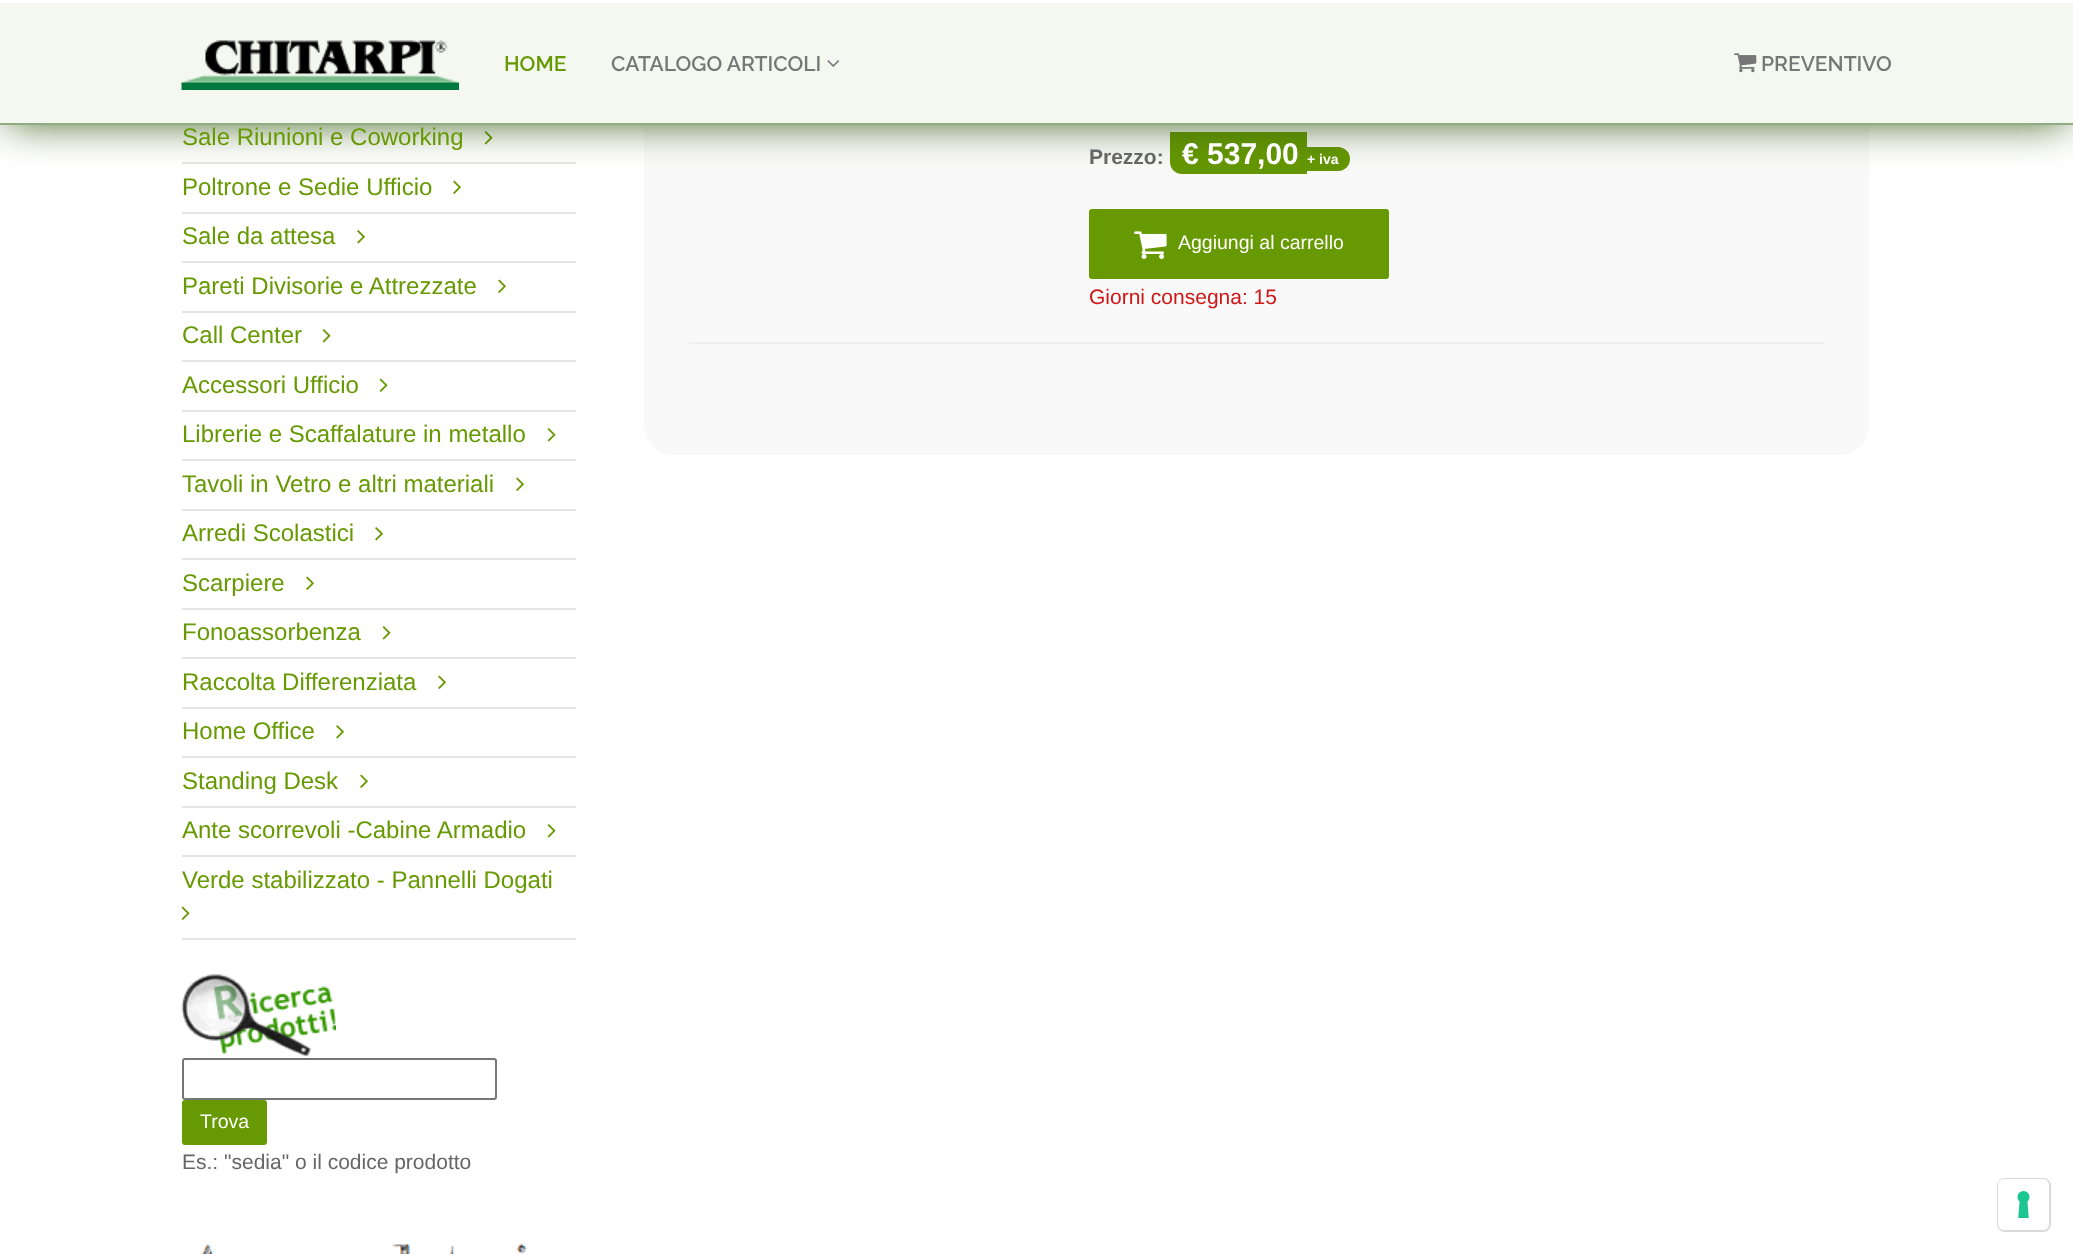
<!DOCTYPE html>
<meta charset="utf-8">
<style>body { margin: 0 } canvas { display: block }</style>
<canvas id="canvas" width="2073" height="1254"></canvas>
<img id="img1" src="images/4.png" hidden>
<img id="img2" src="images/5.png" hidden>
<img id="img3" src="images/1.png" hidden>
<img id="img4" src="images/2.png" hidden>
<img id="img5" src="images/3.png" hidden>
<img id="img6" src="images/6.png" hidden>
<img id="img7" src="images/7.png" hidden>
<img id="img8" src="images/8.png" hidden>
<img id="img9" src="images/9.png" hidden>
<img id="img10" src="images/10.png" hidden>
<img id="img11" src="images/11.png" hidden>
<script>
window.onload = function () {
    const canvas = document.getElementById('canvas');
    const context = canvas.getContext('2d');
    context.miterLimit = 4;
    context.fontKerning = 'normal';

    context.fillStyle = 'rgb(255, 255, 255)';
    context.fillRect(0, 0, 2073, 1254);
    context.fillStyle = 'rgb(229, 229, 229)';
    context.fillRect(182, 162, 394, 2);
    context.drawImage(document.getElementById('img1'), 484, 131, 9, 14);
    context.drawImage(document.getElementById('img2'), 453, 180, 8, 14);
    context.fillStyle = 'rgb(249, 249, 249)';
    context.beginPath();
    context.moveTo(644, -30);
    context.lineTo(1839, -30);
    context.bezierCurveTo(1855.5, -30, 1869, -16.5, 1869, 0);
    context.lineTo(1869, 425);
    context.bezierCurveTo(1869, 441.5, 1855.5, 455, 1839, 455);
    context.lineTo(674, 455);
    context.bezierCurveTo(657.5, 455, 644, 441.5, 644, 425);
    context.closePath();
    context.fill();
    context.fillStyle = 'rgb(100, 150, 2)';
    context.beginPath();
    context.roundRect(1170, 132, 137, 42, [0, 0, 0, 12]);
    context.fill();
    context.beginPath();
    context.roundRect(1307, 147, 43, 24, [0, 12, 12, 0]);
    context.fill();
    context.fillStyle = 'rgb(53, 92, 17)';
    context.filter = 'blur(21px)';
    context.beginPath();
    context.rect(8, 12, 2058, 110);
    context.fill();
    context.filter = 'none';
    context.fillStyle = 'rgb(245, 248, 241)';
    context.fillRect(0, 3, 2073, 120);
    context.fillStyle = 'rgb(255, 255, 255)';
    context.fillRect(0, 0, 2073, 3);
    context.fillStyle = 'rgb(143, 173, 131)';
    context.fillRect(0, 123, 2073, 2);
    context.drawImage(document.getElementById('img3'), 181, 40, 278, 50);
    context.drawImage(document.getElementById('img4'), 827, 60, 12, 7);
    context.drawImage(document.getElementById('img5'), 1734, 53, 23, 20);
    context.fillStyle = 'rgb(229, 229, 229)';
    context.fillRect(182, 212, 394, 2);
    context.fillRect(182, 261, 394, 2);
    context.drawImage(document.getElementById('img6'), 357, 230, 8, 14);
    context.fillRect(182, 311, 394, 2);
    context.drawImage(document.getElementById('img2'), 498, 279, 8, 14);
    context.fillRect(182, 360, 394, 2);
    context.drawImage(document.getElementById('img1'), 322, 329, 9, 14);
    context.fillRect(182, 410, 394, 2);
    context.drawImage(document.getElementById('img7'), 379, 378, 9, 14);
    context.fillRect(182, 459, 394, 2);
    context.drawImage(document.getElementById('img1'), 547, 428, 9, 14);
    context.fillRect(182, 509, 394, 2);
    context.drawImage(document.getElementById('img2'), 516, 477, 8, 14);
    context.fillRect(182, 558, 394, 2);
    context.drawImage(document.getElementById('img6'), 375, 527, 8, 14);
    context.fillRect(182, 608, 394, 2);
    context.drawImage(document.getElementById('img2'), 306, 576, 8, 14);
    context.fillRect(182, 657, 394, 2);
    context.drawImage(document.getElementById('img1'), 382, 626, 9, 14);
    context.fillRect(182, 707, 394, 2);
    context.drawImage(document.getElementById('img2'), 438, 675, 8, 14);
    context.fillRect(182, 756, 394, 2);
    context.drawImage(document.getElementById('img6'), 336, 725, 8, 14);
    context.fillRect(182, 806, 394, 2);
    context.drawImage(document.getElementById('img2'), 360, 774, 8, 14);
    context.fillRect(182, 855, 394, 2);
    context.drawImage(document.getElementById('img1'), 547, 824, 9, 14);
    context.fillRect(182, 938, 394, 2);
    context.drawImage(document.getElementById('img7'), 181, 906, 9, 14);
    context.drawImage(document.getElementById('img8'), 181, 974, 155, 83);
    context.beginPath();
    context.roundRect(183, 1059, 313, 40, 2);
    context.strokeStyle = 'rgb(118, 118, 118)';
    context.lineWidth = 2;
    context.stroke();
    context.fillStyle = 'rgb(103, 153, 2)';
    context.beginPath();
    context.roundRect(182, 1100, 85, 45, 3);
    context.fill();
    context.drawImage(document.getElementById('img9'), 202, 1244, 325, 10);
    context.beginPath();
    context.roundRect(1089, 209, 300, 70, 3);
    context.fill();
    context.drawImage(document.getElementById('img10'), 1134, 231, 33, 28);
    context.fillStyle = 'rgb(238, 238, 238)';
    context.fillRect(689, 342, 1135, 2);
    context.beginPath();
    context.roundRect(1998, 1179, 52, 52, 7);
    context.strokeStyle = 'rgb(217, 217, 217)';
    context.stroke();
    context.fillStyle = 'rgb(255, 255, 255)';
    context.beginPath();
    context.roundRect(1998, 1179, 51, 51, 6);
    context.fill();
    context.drawImage(document.getElementById('img11'), 2017, 1191, 13, 27);
    context.font = '600 21px Raleway';
    context.fillStyle = 'rgb(103, 153, 2)';
    context.fillText('HOME', 504, 71);
    context.fillStyle = 'rgb(119, 119, 119)';
    context.fillText('CATALOGO ARTICOLI', 611, 71);
    context.fillText('PREVENTIVO', 1761, 71);
    context.font = '24px Arimo';
    context.fillStyle = 'rgb(103, 153, 2)';
    context.fillText('Sale Riunioni e Coworking', 182, 145);
    context.fillText('Poltrone e Sedie Ufficio', 182, 195);
    context.fillText('Sale da attesa', 182, 244);
    context.fillText('Pareti Divisorie e Attrezzate', 182, 294);
    context.fillText('Call Center', 182, 343);
    context.fillText('Accessori Ufficio', 182, 393);
    context.fillText('Librerie e Scaffalature in metallo', 182, 442);
    context.fillText('Tavoli in Vetro e altri materiali', 182, 492);
    context.fillText('Arredi Scolastici', 182, 541);
    context.fillText('Scarpiere', 182, 591);
    context.fillText('Fonoassorbenza', 182, 640);
    context.fillText('Raccolta Differenziata', 182, 690);
    context.fillText('Home Office', 182, 739);
    context.fillText('Standing Desk', 182, 789);
    context.fillText('Ante scorrevoli -Cabine Armadio', 182, 838);
    context.fillText('Verde stabilizzato - Pannelli Dogati', 182, 888);
    context.font = '19.5px Arimo';
    context.fillStyle = 'rgb(255, 255, 255)';
    context.fillText('Trova', 200, 1128);
    context.font = '21px Arimo';
    context.fillStyle = 'rgb(102, 102, 102)';
    context.fillText('Es.: "sedia" o il codice prodotto', 182, 1169);
    context.font = 'bold 21px Arimo';
    context.fillText('Prezzo:', 1089, 164);
    context.font = 'bold 30px Arimo';
    context.fillStyle = 'rgb(255, 255, 255)';
    context.fillText('€ 537,00', 1182, 164);
    context.font = 'bold 14px Arimo';
    context.fillText('+ iva', 1307, 164);
    context.font = '19.5px Arimo';
    context.fillText('Aggiungi al carrello', 1178, 249);
    context.font = '21px Arimo';
    context.fillStyle = 'rgb(206, 23, 23)';
    context.fillText('Giorni consegna: 15', 1089, 304);
};
</script>
